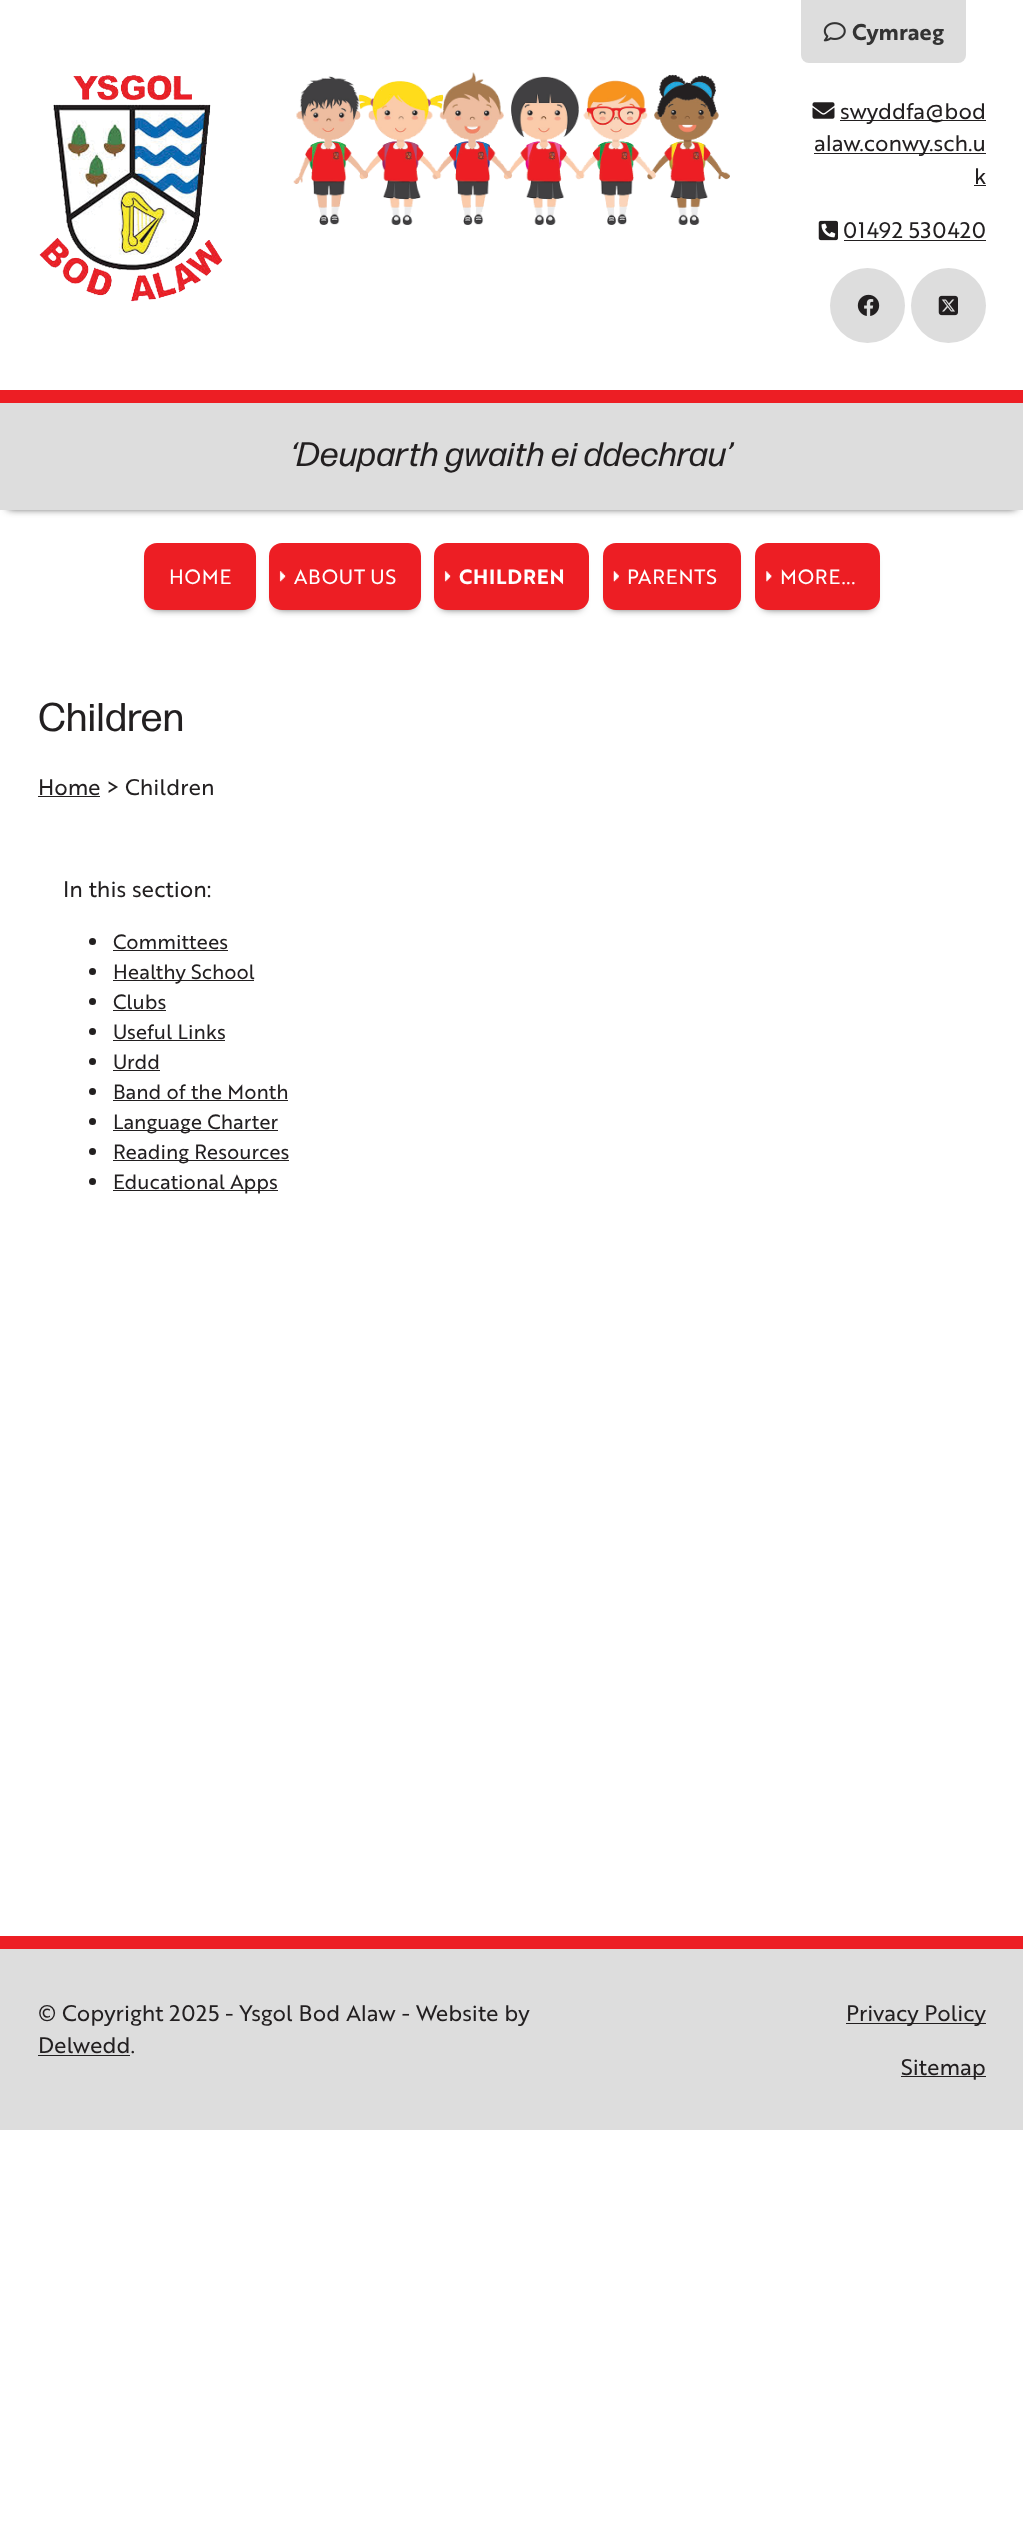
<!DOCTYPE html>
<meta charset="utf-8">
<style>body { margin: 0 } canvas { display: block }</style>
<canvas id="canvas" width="1023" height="2546"></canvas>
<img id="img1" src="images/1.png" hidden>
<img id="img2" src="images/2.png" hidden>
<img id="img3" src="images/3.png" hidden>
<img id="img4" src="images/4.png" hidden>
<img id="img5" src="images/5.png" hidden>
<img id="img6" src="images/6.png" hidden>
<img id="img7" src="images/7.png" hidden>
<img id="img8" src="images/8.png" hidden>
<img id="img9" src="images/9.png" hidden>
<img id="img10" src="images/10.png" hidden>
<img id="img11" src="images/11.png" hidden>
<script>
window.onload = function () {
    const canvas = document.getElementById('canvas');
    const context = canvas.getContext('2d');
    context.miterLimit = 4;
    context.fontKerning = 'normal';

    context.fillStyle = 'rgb(255, 255, 255)';
    context.fillRect(0, 0, 1023, 2546);
    context.fillStyle = 'rgb(221, 221, 221)';
    context.beginPath();
    context.roundRect(801, 0, 165, 63, [0, 0, 8, 8]);
    context.fill();
    context.drawImage(document.getElementById('img1'), 823, 22, 23, 20);
    context.drawImage(document.getElementById('img2'), 39, 75, 184, 227);
    context.drawImage(document.getElementById('img3'), 293, 72, 437, 153);
    context.drawImage(document.getElementById('img4'), 812, 102, 23, 17);
    context.fillStyle = 'rgb(34, 31, 32)';
    context.fillRect(840, 120, 146, 1);
    context.fillRect(814, 153, 172, 1);
    context.fillRect(974, 185, 12, 1);
    context.drawImage(document.getElementById('img5'), 818, 220, 20, 21);
    context.fillRect(844, 240, 142, 1);
    context.fillStyle = 'rgb(221, 221, 221)';
    context.beginPath();
    context.arc(867.5, 305.5, 37.5, 0, 2 * Math.PI);
    context.fill();
    context.drawImage(document.getElementById('img6'), 857, 294, 23, 22);
    context.beginPath();
    context.arc(948.5, 305.5, 37.5, 0, 2 * Math.PI);
    context.fill();
    context.drawImage(document.getElementById('img7'), 938, 295, 20, 21);
    context.fillStyle = 'rgb(34, 34, 34)';
    context.filter = 'blur(4px)';
    context.beginPath();
    context.rect(8, 403, 1008, 105);
    context.fill();
    context.filter = 'none';
    context.fillStyle = 'rgb(221, 221, 221)';
    context.fillRect(0, 403, 1023, 107);
    context.fillStyle = 'rgb(237, 30, 36)';
    context.fillRect(0, 390, 1023, 13);
    context.fillStyle = 'rgb(34, 34, 34)';
    context.filter = 'blur(4px)';
    context.beginPath();
    context.roundRect(151, 555, 98, 53, 5);
    context.fill();
    context.filter = 'none';
    context.fillStyle = 'rgb(237, 30, 36)';
    context.beginPath();
    context.roundRect(144, 543, 112, 67, 13);
    context.fill();
    context.fillStyle = 'rgb(34, 34, 34)';
    context.filter = 'blur(4px)';
    context.beginPath();
    context.roundRect(276, 555, 138, 53, 5);
    context.fill();
    context.filter = 'none';
    context.fillStyle = 'rgb(237, 30, 36)';
    context.beginPath();
    context.roundRect(269, 543, 152, 67, 13);
    context.fill();
    context.drawImage(document.getElementById('img8'), 279, 571, 7, 11);
    context.fillStyle = 'rgb(34, 34, 34)';
    context.filter = 'blur(4px)';
    context.beginPath();
    context.roundRect(441, 555, 140, 53, 5);
    context.fill();
    context.filter = 'none';
    context.fillStyle = 'rgb(237, 30, 36)';
    context.beginPath();
    context.roundRect(434, 543, 155, 67, 13);
    context.fill();
    context.drawImage(document.getElementById('img9'), 444, 571, 7, 11);
    context.fillStyle = 'rgb(34, 34, 34)';
    context.filter = 'blur(4px)';
    context.beginPath();
    context.roundRect(610, 555, 124, 53, 5);
    context.fill();
    context.filter = 'none';
    context.fillStyle = 'rgb(237, 30, 36)';
    context.beginPath();
    context.roundRect(603, 543, 138, 67, 13);
    context.fill();
    context.drawImage(document.getElementById('img10'), 613, 571, 6, 11);
    context.fillStyle = 'rgb(34, 34, 34)';
    context.filter = 'blur(4px)';
    context.beginPath();
    context.roundRect(763, 555, 110, 53, 5);
    context.fill();
    context.filter = 'none';
    context.fillStyle = 'rgb(237, 30, 36)';
    context.beginPath();
    context.roundRect(755, 543, 125, 67, 13);
    context.fill();
    context.drawImage(document.getElementById('img11'), 766, 571, 6, 11);
    context.fillStyle = 'rgb(34, 31, 32)';
    context.fillRect(38, 796, 62, 1);
    context.beginPath();
    context.arc(92.5, 941.5, 3.5, 0, 2 * Math.PI);
    context.fill();
    context.fillRect(113, 950, 115, 1);
    context.beginPath();
    context.arc(92.5, 971.5, 3.5, 0, 2 * Math.PI);
    context.fill();
    context.fillRect(113, 980, 141, 1);
    context.beginPath();
    context.arc(92.5, 1001.5, 3.5, 0, 2 * Math.PI);
    context.fill();
    context.fillRect(113, 1010, 53, 1);
    context.beginPath();
    context.arc(92.5, 1031.5, 3.5, 0, 2 * Math.PI);
    context.fill();
    context.fillRect(113, 1040, 112, 1);
    context.beginPath();
    context.arc(92.5, 1061.5, 3.5, 0, 2 * Math.PI);
    context.fill();
    context.fillRect(113, 1070, 47, 1);
    context.beginPath();
    context.arc(92.5, 1091.5, 3.5, 0, 2 * Math.PI);
    context.fill();
    context.fillRect(113, 1100, 175, 1);
    context.beginPath();
    context.arc(92.5, 1121.5, 3.5, 0, 2 * Math.PI);
    context.fill();
    context.fillRect(113, 1130, 165, 1);
    context.beginPath();
    context.arc(92.5, 1151.5, 3.5, 0, 2 * Math.PI);
    context.fill();
    context.fillRect(113, 1160, 176, 1);
    context.beginPath();
    context.arc(92.5, 1181.5, 3.5, 0, 2 * Math.PI);
    context.fill();
    context.fillRect(113, 1190, 165, 1);
    context.fillStyle = 'rgb(221, 221, 221)';
    context.fillRect(0, 1949, 1023, 181);
    context.fillStyle = 'rgb(237, 30, 36)';
    context.fillRect(0, 1936, 1023, 13);
    context.fillStyle = 'rgb(34, 31, 32)';
    context.fillRect(38, 2055, 92, 1);
    context.fillRect(846, 2023, 140, 1);
    context.fillRect(901, 2076, 85, 1);
    context.font = 'bold 22px "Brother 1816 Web"';
    context.fillStyle = 'rgb(51, 51, 51)';
    context.fillText('Cymraeg', 852, 40);
    context.font = '22px "Brother 1816 Web"';
    context.fillStyle = 'rgb(34, 31, 32)';
    context.fillText('swyddfa@bod', 840, 119);
    context.fillText('alaw.conwy.sch.u', 814, 151);
    context.fillText('k', 974, 184);
    context.fillText('01492 530420', 843, 238);
    context.font = 'italic 34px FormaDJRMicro';
    context.fillText('‘Deuparth gwaith ei ddechrau’', 291, 466);
    context.font = '20px "Brother 1816 Web"';
    context.fillStyle = 'rgb(255, 255, 255)';
    context.fillText('HOME', 169, 584);
    context.fillText('ABOUT US', 294, 584);
    context.font = 'bold 20px "Brother 1816 Web"';
    context.fillText('CHILDREN', 459, 584);
    context.font = '20px "Brother 1816 Web"';
    context.fillText('PARENTS', 627, 584);
    context.fillText('MORE...', 780, 584);
    context.font = '40px FormaDJRMicro';
    context.fillStyle = 'rgb(34, 31, 32)';
    context.fillText('Children', 38, 731);
    context.font = '22px "Brother 1816 Web"';
    context.fillText('Home > Children', 38, 795);
    context.fillText('In this section:', 63, 897);
    context.font = '20px "Brother 1816 Web"';
    context.fillText('Committees', 113, 949);
    context.fillText('Healthy School', 113, 979);
    context.fillText('Clubs', 113, 1009);
    context.fillText('Useful Links', 113, 1039);
    context.fillText('Urdd', 113, 1069);
    context.fillText('Band of the Month', 113, 1099);
    context.fillText('Language Charter', 113, 1129);
    context.fillText('Reading Resources', 113, 1159);
    context.fillText('Educational Apps', 113, 1189);
    context.font = '22px "Brother 1816 Web"';
    context.fillText('© Copyright 2025 - Ysgol Bod Alaw - Website by', 38, 2021);
    context.fillText('Delwedd.', 38, 2053);
    context.fillText('Privacy Policy', 846, 2021);
    context.fillText('Sitemap', 901, 2075);
};
</script>
